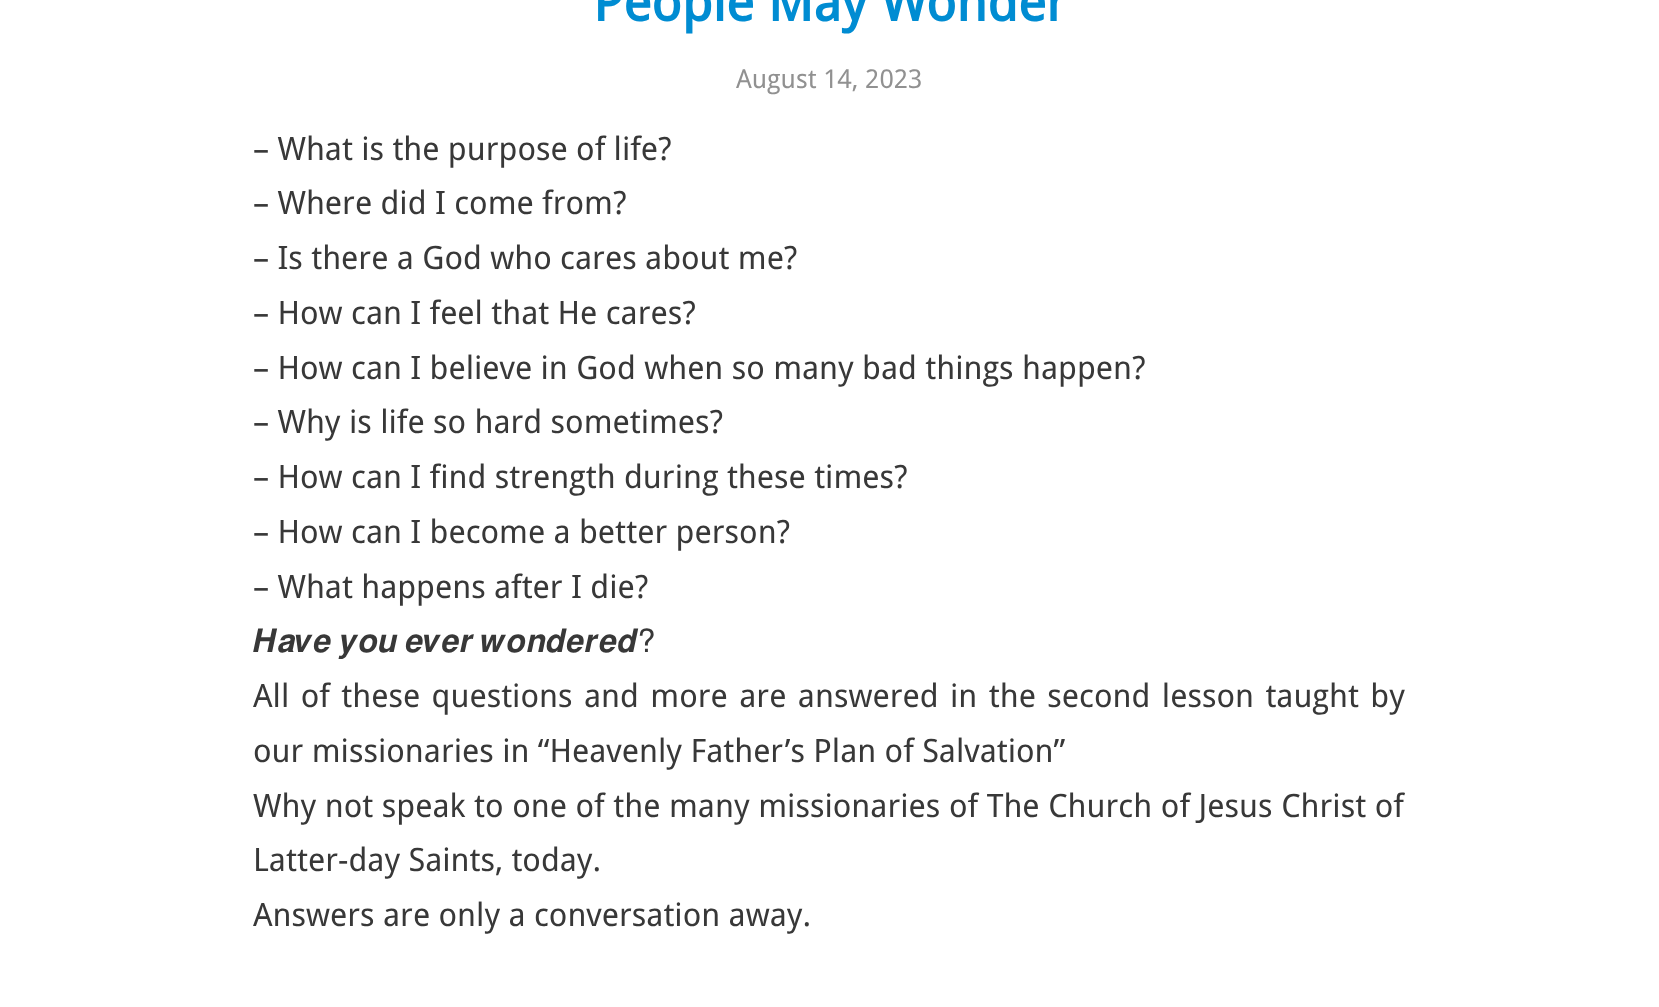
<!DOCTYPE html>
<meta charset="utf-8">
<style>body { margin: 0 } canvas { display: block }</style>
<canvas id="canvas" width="1659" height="1007"></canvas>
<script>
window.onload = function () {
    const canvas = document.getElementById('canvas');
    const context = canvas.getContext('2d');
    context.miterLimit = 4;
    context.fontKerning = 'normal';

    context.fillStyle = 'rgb(255, 255, 255)';
    context.fillRect(0, 0, 1659, 1007);
    context.font = 'bold 52.5px Droid Sans';
    context.fillStyle = 'rgb(0, 140, 210)';
    context.fillText('People May Wonder', 593, 21);
    context.font = '26px Droid Sans';
    context.fillStyle = 'rgb(145, 145, 145)';
    context.fillText('August 14, 2023', 736, 88);
    context.font = '32.2px Droid Sans';
    context.fillStyle = 'rgb(56, 56, 56)';
    context.fillText('– What is the purpose of life?', 253, 160);
    context.fillText('– Where did I come from?', 253, 214);
    context.fillText('– Is there a God who cares about me?', 253, 269);
    context.fillText('– How can I feel that He cares?', 253, 324);
    context.fillText('– How can I believe in God when so many bad things happen?', 253, 379);
    context.fillText('– Why is life so hard sometimes?', 253, 433);
    context.fillText('– How can I find strength during these times?', 253, 488);
    context.fillText('– How can I become a better person?', 253, 543);
    context.fillText('– What happens after I die?', 253, 598);
    context.wordSpacing = '-1px';
    context.font = '32.2px FreeSans';
    context.fillText('𝑯𝒂𝒗𝒆 𝒚𝒐𝒖 𝒆𝒗𝒆𝒓 𝒘𝒐𝒏𝒅𝒆𝒓𝒆𝒅?', 253, 652);
    context.wordSpacing = '3.1px';
    context.font = '32.2px Droid Sans';
    context.fillText('All of these questions and more are answered in the second lesson taught by', 253, 707);
    context.wordSpacing = '0px';
    context.fillText('our missionaries in “Heavenly Father’s Plan of Salvation”', 253, 762);
    context.wordSpacing = '0.25px';
    context.fillText('Why not speak to one of the many missionaries of The Church of Jesus Christ of', 253, 817);
    context.wordSpacing = '0px';
    context.fillText('Latter-day Saints, today.', 253, 871);
    context.fillText('Answers are only a conversation away.', 253, 926);
};
</script>
